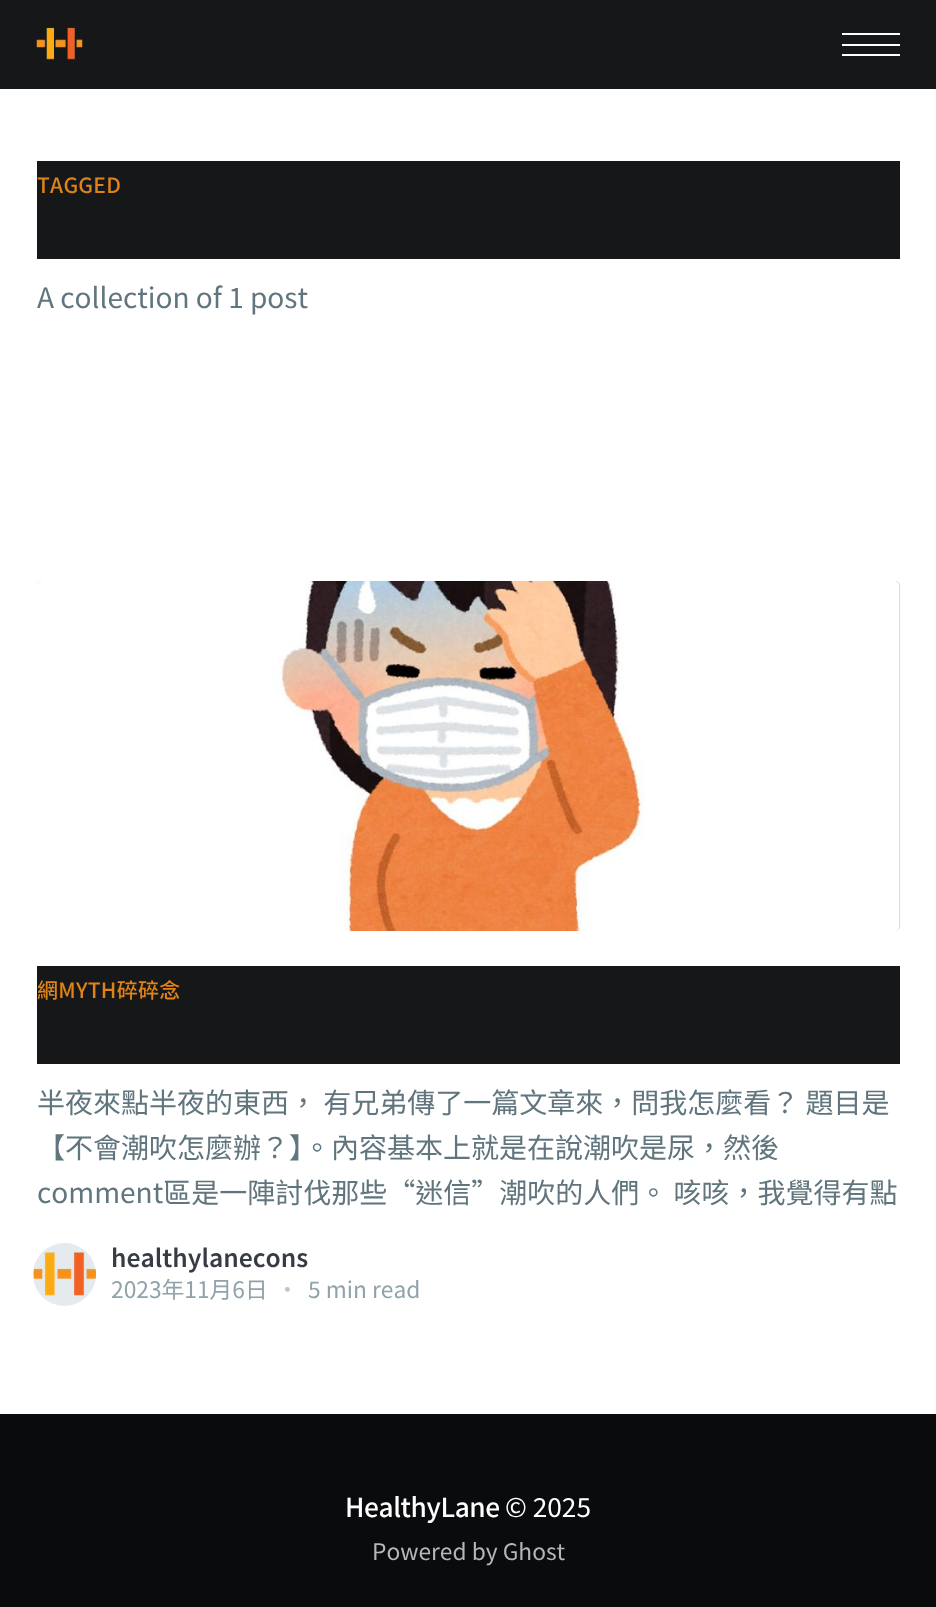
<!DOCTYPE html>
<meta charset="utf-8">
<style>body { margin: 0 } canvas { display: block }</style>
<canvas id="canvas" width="936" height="1607"></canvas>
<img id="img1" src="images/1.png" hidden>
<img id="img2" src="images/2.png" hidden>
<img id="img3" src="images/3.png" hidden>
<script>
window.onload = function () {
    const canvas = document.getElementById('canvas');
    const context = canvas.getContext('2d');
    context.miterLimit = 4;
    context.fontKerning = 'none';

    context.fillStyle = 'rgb(255, 255, 255)';
    context.fillRect(0, 0, 936, 1607);
    context.fillStyle = 'rgb(22, 23, 25)';
    context.fillRect(0, 0, 936, 89);
    context.drawImage(document.getElementById('img1'), 36, 27, 47, 33);
    context.fillStyle = 'rgb(255, 255, 255)';
    context.fillRect(842, 33, 58, 2);
    context.fillRect(842, 54, 58, 2);
    context.fillRect(842, 44, 58, 2);
    context.fillStyle = 'rgb(22, 23, 25)';
    context.fillRect(37, 161, 863, 98);
    context.fillStyle = 'rgb(197, 210, 217)';
    context.beginPath();
    context.roundRect(37, 581, 863, 350, 5);
    context.fill();
    context.drawImage(document.getElementById('img2'), 37, 581, 863, 350);
    context.fillStyle = 'rgb(22, 23, 25)';
    context.fillRect(37, 966, 863, 98);
    context.fillStyle = 'rgb(228, 234, 237)';
    context.beginPath();
    context.arc(64.5, 1274.5, 31.5, 0, 2 * Math.PI);
    context.fill();
    context.drawImage(document.getElementById('img3'), 33, 1252, 63, 44);
    context.fillStyle = 'rgb(10, 11, 12)';
    context.fillRect(0, 1414, 936, 193);
    context.letterSpacing = '0.25px';
    context.font = '500 21px Noto Sans TC';
    context.fillStyle = 'rgb(223, 131, 25)';
    context.fillText('TAGGED', 37, 193);
    context.letterSpacing = '0px';
    context.font = '28px Noto Sans TC';
    context.fillStyle = 'rgb(96, 117, 126)';
    context.fillText('A collection of 1 post', 37, 308);
    context.letterSpacing = '0.25px';
    context.font = '500 21px Noto Sans TC';
    context.fillStyle = 'rgb(223, 131, 25)';
    context.fillText('網MYTH碎碎念', 37, 998);
    context.letterSpacing = '0px';
    context.font = '28px Noto Sans TC';
    context.fillStyle = 'rgb(96, 117, 126)';
    context.fillText('半夜來點半夜的東西， 有兄弟傳了一篇文章來，問我怎麼看？ 題目是', 37, 1113);
    context.fillText('【不會潮吹怎麼辦？】。內容基本上就是在說潮吹是尿，然後', 37, 1158);
    context.fillText('comment區是一陣討伐那些“迷信”潮吹的人們。 咳咳，我覺得有點', 37, 1203);
    context.font = '600 24.5px Noto Sans TC';
    context.fillStyle = 'rgb(55, 60, 68)';
    context.fillText('healthylanecons', 111, 1267);
    context.font = '22.75px Noto Sans TC';
    context.fillStyle = 'rgb(144, 162, 170)';
    context.fillText('2023年11月6日', 111, 1298);
    context.fillStyle = 'rgb(188, 199, 204)';
    context.fillText('•', 276, 1298);
    context.fillStyle = 'rgb(144, 162, 170)';
    context.fillText('5 min read', 308, 1298);
    context.letterSpacing = '-0.4px';
    context.font = '500 26.25px Noto Sans TC';
    context.fillStyle = 'rgb(255, 255, 255)';
    context.fillText('HealthyLane', 345, 1517);
    context.letterSpacing = '0px';
    context.font = '26.25px Noto Sans TC';
    context.fillText('© 2025', 505, 1517);
    context.font = '22.75px Noto Sans TC';
    context.fillStyle = 'rgb(182, 182, 182)';
    context.fillText('Powered by Ghost', 372, 1560);
};
</script>
